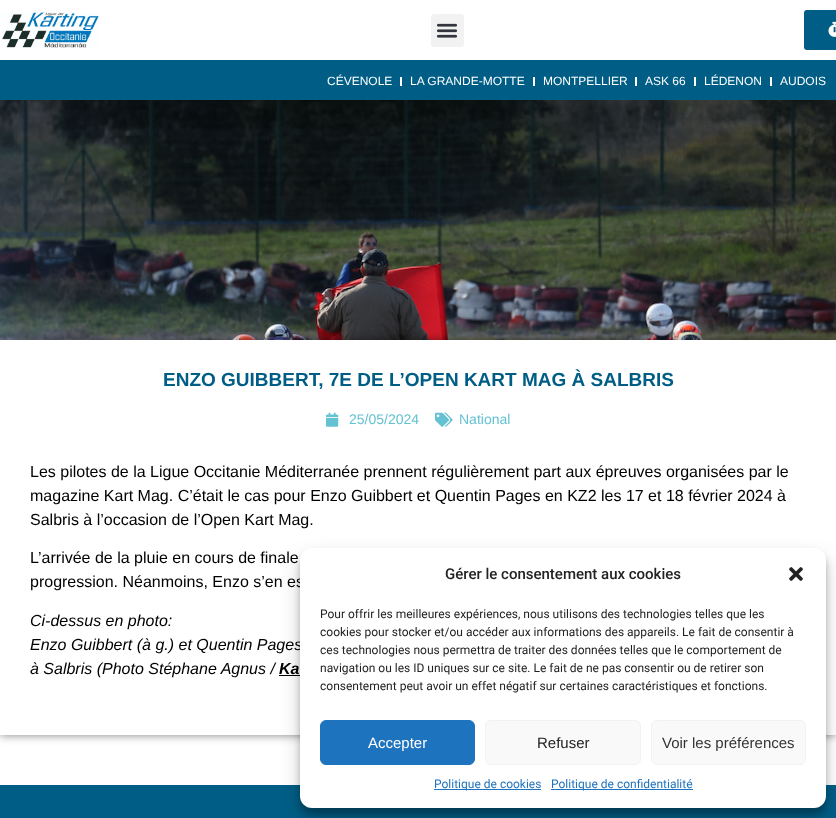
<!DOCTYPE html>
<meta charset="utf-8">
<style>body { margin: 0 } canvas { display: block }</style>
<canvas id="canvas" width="836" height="818"></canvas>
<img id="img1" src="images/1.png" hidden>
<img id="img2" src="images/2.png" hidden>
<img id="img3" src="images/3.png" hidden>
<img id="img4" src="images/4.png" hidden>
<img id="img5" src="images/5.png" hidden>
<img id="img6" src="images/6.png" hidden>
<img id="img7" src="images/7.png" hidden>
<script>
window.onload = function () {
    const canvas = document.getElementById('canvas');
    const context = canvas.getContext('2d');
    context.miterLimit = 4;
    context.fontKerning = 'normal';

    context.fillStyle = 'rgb(255, 255, 255)';
    context.fillRect(0, 0, 836, 818);
    context.drawImage(document.getElementById('img1'), 2, 12, 97, 36);
    context.fillStyle = 'rgb(242, 242, 242)';
    context.beginPath();
    context.roundRect(431, 14, 33, 33, 3);
    context.fill();
    context.drawImage(document.getElementById('img2'), 436, 23, 22, 15);
    context.fillStyle = 'rgb(0, 94, 134)';
    context.beginPath();
    context.roundRect(804, 10, 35, 40, 3);
    context.fill();
    context.drawImage(document.getElementById('img3'), 828, 21, 8, 16);
    context.fillRect(0, 60, 836, 40);
    context.fillStyle = 'rgb(255, 255, 255)';
    context.fillRect(400, 77, 2, 9);
    context.fillRect(533, 77, 2, 9);
    context.fillRect(635, 77, 2, 9);
    context.fillRect(694, 77, 2, 9);
    context.fillRect(770, 77, 2, 9);
    context.drawImage(document.getElementById('img4'), 0, 100, 836, 240);
    context.fillStyle = 'rgba(0, 0, 0, 0.5)';
    context.filter = 'blur(5px)';
    context.beginPath();
    context.rect(0, 340, 836, 395);
    context.fill();
    context.filter = 'none';
    context.fillStyle = 'rgb(255, 255, 255)';
    context.fillRect(0, 340, 836, 395);
    context.drawImage(document.getElementById('img5'), 326, 412, 13, 15);
    context.drawImage(document.getElementById('img6'), 435, 412, 18, 15);
    context.fillStyle = 'rgb(0, 0, 0)';
    context.fillRect(279, 675, 21, 1);
    context.fillStyle = 'rgb(0, 94, 134)';
    context.fillRect(0, 785, 836, 33);
    context.fillStyle = 'rgba(0, 0, 0, 0.23)';
    context.filter = 'blur(3px)';
    context.beginPath();
    context.roundRect(300, 554, 526, 260, 12);
    context.fill();
    context.filter = 'none';
    context.fillStyle = 'rgba(0, 0, 0, 0.19)';
    context.filter = 'blur(10px)';
    context.beginPath();
    context.roundRect(300, 558, 526, 260, 12);
    context.fill();
    context.filter = 'none';
    context.font = '12px Liberation Sans';
    context.fillStyle = 'rgb(255, 255, 255)';
    context.fillText('CÉVENOLE', 327, 85);
    context.fillText('LA GRANDE-MOTTE', 410, 85);
    context.fillText('MONTPELLIER', 543, 85);
    context.fillText('ASK 66', 645, 85);
    context.fillText('LÉDENON', 704, 85);
    context.fillText('AUDOIS', 780, 85);
    context.font = 'bold 19px Liberation Sans';
    context.fillStyle = 'rgb(0, 94, 134)';
    context.fillText('ENZO GUIBBERT, 7E DE L’OPEN KART MAG À SALBRIS', 163, 386);
    context.font = '14px Liberation Sans';
    context.fillStyle = 'rgb(100, 194, 210)';
    context.fillText('25/05/2024', 349, 424);
    context.fillText('National', 459, 424);
    context.font = '16px Liberation Sans';
    context.fillStyle = 'rgb(0, 0, 0)';
    context.fillText('Les pilotes de la Ligue Occitanie Méditerranée prennent régulièrement part aux épreuves organisées par le', 30, 477);
    context.fillText('magazine Kart Mag. C’était le cas pour Enzo Guibbert et Quentin Pages en KZ2 les 17 et 18 février 2024 à', 30, 501);
    context.fillText('Salbris à l’occasion de l’Open Kart Mag.', 30, 525);
    context.fillText('L’arrivée de la pluie en cours de finale', 30, 563);
    context.fillText('progression. Néanmoins, Enzo s’en es', 30, 587);
    context.font = 'italic 16px Liberation Sans';
    context.fillText('Ci-dessus en photo:', 30, 626);
    context.fillText('Enzo Guibbert (à g.) et Quentin Pages', 30, 650);
    context.fillText('à Salbris (Photo Stéphane Agnus /', 30, 674);
    context.font = 'italic bold 16px Liberation Sans';
    context.fillText('Ka', 279, 674);
    context.fillStyle = 'rgb(255, 255, 255)';
    context.beginPath();
    context.roundRect(300, 548, 526, 260, 12);
    context.fill();
    context.font = '500 15px Roboto';
    context.fillStyle = 'rgb(34, 34, 34)';
    context.fillText('Gérer le consentement aux cookies', 445, 579);
    context.drawImage(document.getElementById('img7'), 789, 567, 14, 14);
    context.font = '12px Roboto';
    context.fillText('Pour offrir les meilleures expériences, nous utilisons des technologies telles que les', 320, 618);
    context.fillText('cookies pour stocker et/ou accéder aux informations des appareils. Le fait de consentir à', 320, 636);
    context.fillText('ces technologies nous permettra de traiter des données telles que le comportement de', 320, 654);
    context.fillText('navigation ou les ID uniques sur ce site. Le fait de ne pas consentir ou de retirer son', 320, 672);
    context.fillText('consentement peut avoir un effet négatif sur certaines caractéristiques et fonctions.', 320, 690);
    context.fillStyle = 'rgb(30, 115, 190)';
    context.beginPath();
    context.roundRect(320.5, 720.5, 154, 44, 5.5);
    context.fill();
    context.strokeStyle = 'rgb(30, 115, 190)';
    context.stroke();
    context.font = '15px Liberation Sans';
    context.fillStyle = 'rgb(255, 255, 255)';
    context.fillText('Accepter', 368, 748);
    context.fillStyle = 'rgb(249, 249, 249)';
    context.beginPath();
    context.roundRect(485.5, 720.5, 155, 44, 5.5);
    context.fill();
    context.strokeStyle = 'rgb(242, 242, 242)';
    context.stroke();
    context.fillStyle = 'rgb(34, 34, 34)';
    context.fillText('Refuser', 537, 748);
    context.fillStyle = 'rgb(249, 249, 249)';
    context.beginPath();
    context.roundRect(651.5, 720.5, 154, 44, 5.5);
    context.fill();
    context.stroke();
    context.fillStyle = 'rgb(51, 51, 51)';
    context.fillText('Voir les préférences', 662, 748);
    context.fillStyle = 'rgb(30, 115, 190)';
    context.fillRect(434, 789, 107, 1);
    context.font = '12px Roboto';
    context.fillText('Politique de cookies', 434, 788);
    context.fillRect(551, 789, 142, 1);
    context.fillText('Politique de confidentialité', 551, 788);
};
</script>
